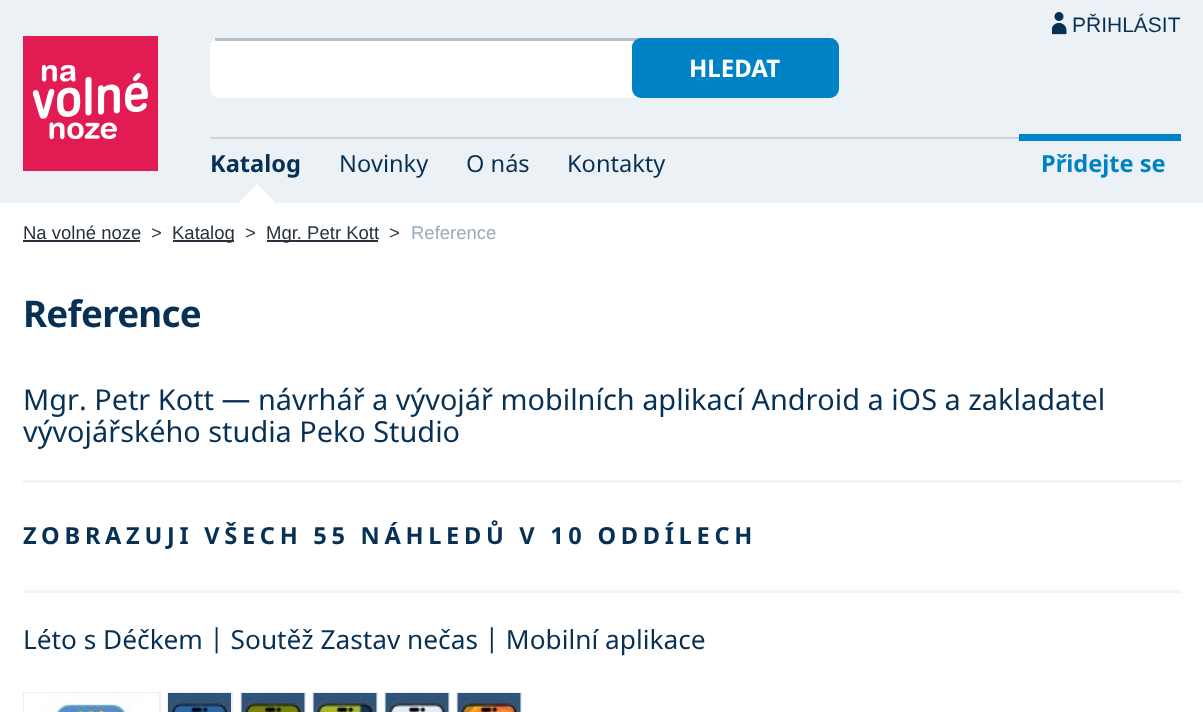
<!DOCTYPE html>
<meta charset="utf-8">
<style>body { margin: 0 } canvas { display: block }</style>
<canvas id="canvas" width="1203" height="712"></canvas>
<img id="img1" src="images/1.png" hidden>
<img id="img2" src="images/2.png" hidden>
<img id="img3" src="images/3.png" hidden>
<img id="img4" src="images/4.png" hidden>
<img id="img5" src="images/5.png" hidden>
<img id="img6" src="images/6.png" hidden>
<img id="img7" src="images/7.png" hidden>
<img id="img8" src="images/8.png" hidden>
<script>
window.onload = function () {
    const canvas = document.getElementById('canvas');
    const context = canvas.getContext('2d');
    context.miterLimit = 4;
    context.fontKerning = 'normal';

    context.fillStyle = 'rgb(255, 255, 255)';
    context.fillRect(0, 0, 1203, 712);
    context.fillStyle = 'rgb(235, 241, 245)';
    context.fillRect(0, 0, 1203, 203);
    context.fillStyle = 'rgb(227, 27, 83)';
    context.fillRect(23, 36, 135, 135);
    context.drawImage(document.getElementById('img1'), 32, 64, 116, 76);
    context.drawImage(document.getElementById('img2'), 1052, 12, 15, 23);
    context.fillStyle = 'rgb(204, 212, 217)';
    context.fillRect(210, 137, 809, 2);
    context.save();
    context.beginPath();
    context.rect(186, 138, 129, 65);
    context.clip();
    context.fillStyle = 'rgb(255, 255, 255)';
    context.beginPath();
    context.moveTo(257, 184);
    context.lineTo(291, 218);
    context.lineTo(257, 252);
    context.lineTo(223, 218);
    context.closePath();
    context.fill();
    context.restore();
    context.fillStyle = 'rgb(0, 131, 198)';
    context.fillRect(1019, 134, 162, 7);
    context.fillStyle = 'rgb(255, 255, 255)';
    context.beginPath();
    context.roundRect(210, 38, 629, 60, 9);
    context.fill();
    context.fillStyle = 'rgb(188, 190, 199)';
    context.fillRect(215, 38, 619, 3);
    context.fillStyle = 'rgb(0, 131, 198)';
    context.beginPath();
    context.roundRect(633, 39, 205, 58, 8);
    context.fill();
    context.strokeStyle = 'rgb(0, 131, 198)';
    context.lineWidth = 2;
    context.stroke();
    context.fillStyle = 'rgb(39, 50, 62)';
    context.fillRect(23, 240, 117, 2);
    context.fillRect(173, 240, 61, 2);
    context.fillRect(267, 240, 111, 2);
    context.fillStyle = 'rgb(244, 243, 243)';
    context.fillRect(23, 480, 1158, 3);
    context.fillRect(23, 590, 1158, 3);
    context.strokeStyle = 'rgb(235, 241, 245)';
    context.strokeRect(24, 693, 136, 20);
    context.drawImage(document.getElementById('img3'), 24, 693, 135, 19);
    context.strokeRect(168, 693, 64, 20);
    context.drawImage(document.getElementById('img4'), 168, 693, 63, 19);
    context.strokeRect(241, 693, 64, 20);
    context.drawImage(document.getElementById('img5'), 241, 693, 64, 19);
    context.strokeRect(313, 693, 64, 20);
    context.drawImage(document.getElementById('img6'), 313, 693, 64, 19);
    context.strokeRect(385, 693, 64, 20);
    context.drawImage(document.getElementById('img7'), 385, 693, 64, 19);
    context.strokeRect(457, 693, 64, 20);
    context.drawImage(document.getElementById('img8'), 457, 693, 64, 19);
    context.font = '21px Liberation Sans';
    context.fillStyle = 'rgb(7, 48, 85)';
    context.fillText('PŘIHLÁSIT', 1072, 32);
    context.font = 'bold 23.6px Noto Sans';
    context.fillText('Katalog', 210, 172);
    context.font = '23.6px Noto Sans';
    context.fillText('Novinky', 339, 172);
    context.fillText('O nás', 466, 172);
    context.fillText('Kontakty', 567, 172);
    context.font = 'bold 23.6px Noto Sans';
    context.fillStyle = 'rgb(0, 131, 198)';
    context.fillText('Přidejte se', 1041, 172);
    context.font = 'bold 24px Noto Sans';
    context.fillStyle = 'rgb(255, 255, 255)';
    context.fillText('HLEDAT', 689, 77);
    context.font = '18.5px Liberation Sans';
    context.fillStyle = 'rgb(39, 50, 62)';
    context.fillText('Na volné noze', 23, 239);
    context.fillText('>', 151, 239);
    context.fillText('Katalog', 172, 239);
    context.fillText('>', 245, 239);
    context.fillText('Mgr. Petr Kott', 266, 239);
    context.fillText('>', 389, 239);
    context.fillStyle = 'rgb(155, 171, 188)';
    context.fillText('Reference', 411, 239);
    context.letterSpacing = '-0.75px';
    context.font = 'bold 36.75px Noto Sans';
    context.fillStyle = 'rgb(7, 48, 85)';
    context.fillText('Reference', 23, 327);
    context.letterSpacing = '0px';
    context.font = '28.9px Noto Sans';
    context.fillText('Mgr. Petr Kott — návrhář a vývojář mobilních aplikací Android a iOS a zakladatel', 23, 410);
    context.fillText('vývojářského studia Peko Studio', 23, 442);
    context.letterSpacing = '4.7px';
    context.font = 'bold 23.6px Noto Sans';
    context.fillText('ZOBRAZUJI VŠECH 55 NÁHLEDŮ V 10 ODDÍLECH', 23, 544);
    context.letterSpacing = '0px';
    context.font = '26.25px Noto Sans';
    context.fillText('Léto s Déčkem | Soutěž Zastav nečas | Mobilní aplikace', 23, 649);
};
</script>
